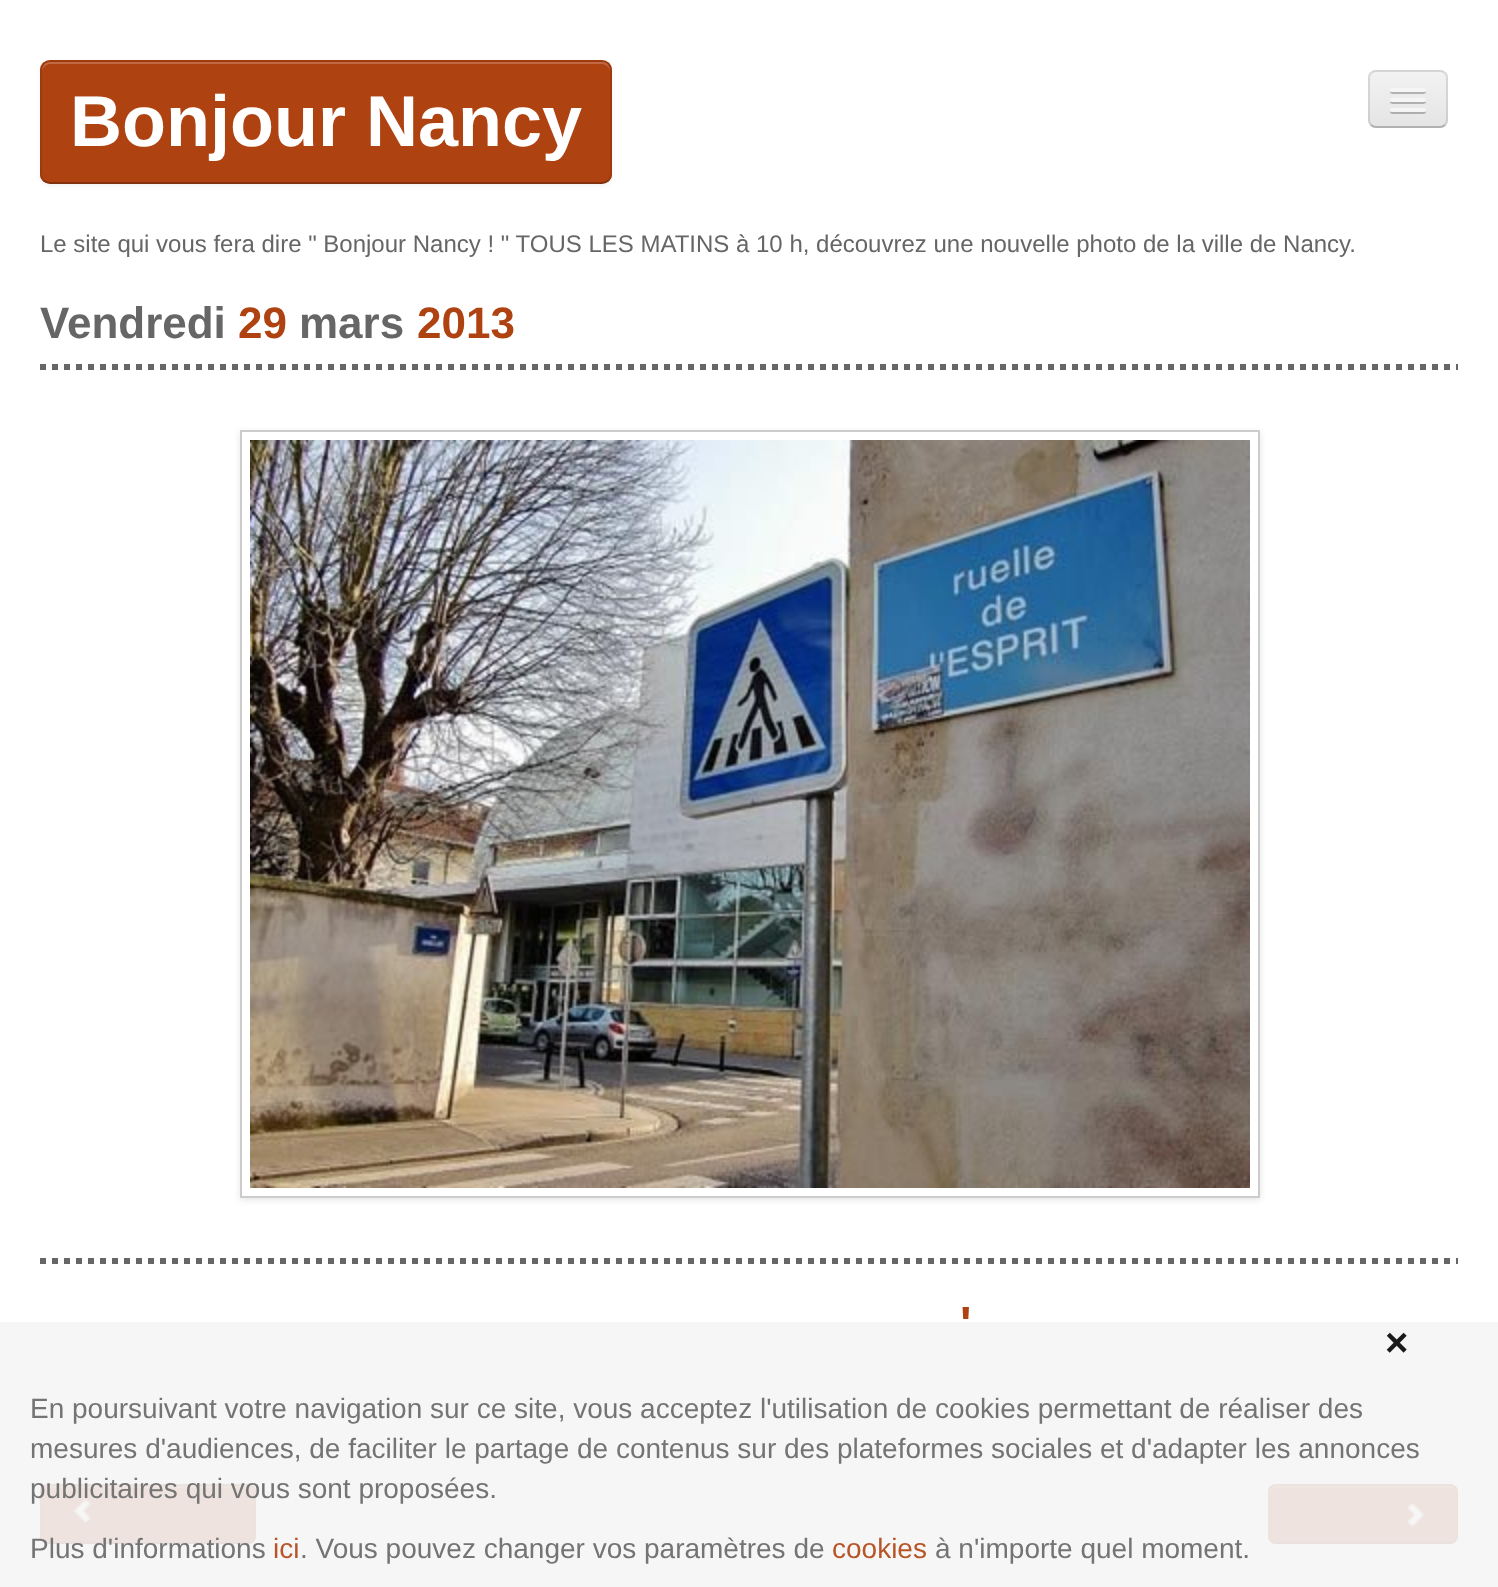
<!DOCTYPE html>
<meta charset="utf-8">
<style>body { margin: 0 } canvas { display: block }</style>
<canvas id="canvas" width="1498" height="1587"></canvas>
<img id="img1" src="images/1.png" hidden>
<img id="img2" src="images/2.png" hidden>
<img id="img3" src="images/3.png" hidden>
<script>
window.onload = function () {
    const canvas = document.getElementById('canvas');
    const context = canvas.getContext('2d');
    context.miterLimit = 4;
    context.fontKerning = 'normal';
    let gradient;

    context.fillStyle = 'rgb(255, 255, 255)';
    context.fillRect(0, 0, 1498, 1587);
    context.fillStyle = 'rgba(0, 0, 0, 0.05)';
    context.filter = 'blur(2px)';
    context.beginPath();
    context.roundRect(40, 62, 572, 124, 10);
    context.fill();
    context.filter = 'none';
    context.fillStyle = 'rgb(175, 66, 17)';
    context.beginPath();
    context.roundRect(40, 60, 572, 124, 10);
    context.fill();
    context.save();
    context.beginPath();
    context.roundRect(40, 60, 572, 124, 10);
    context.clip();
    context.fillRect(40, 62, 572, 120);
    context.restore();
    context.fillStyle = 'rgb(191, 104, 65)';
    context.beginPath();
    context.moveTo(50, 64);
    context.lineTo(602, 64);
    context.bezierCurveTo(606, 64, 610, 68, 610, 72);
    context.bezierCurveTo(610, 67, 608, 62, 602, 62);
    context.lineTo(50, 62);
    context.bezierCurveTo(44, 62, 42, 67, 42, 72);
    context.bezierCurveTo(42, 68, 46, 64, 50, 64);
    context.closePath();
    context.fill();
    context.beginPath();
    context.moveTo(608.5, 180.5);
    context.bezierCurveTo(606.5, 182, 604.5, 183, 602, 183);
    context.lineTo(50, 183);
    context.bezierCurveTo(47.5, 183, 45.5, 182, 43.5, 180.5);
    context.strokeStyle = 'rgba(0, 0, 0, 0.25)';
    context.lineWidth = 2;
    context.stroke();
    context.beginPath();
    context.moveTo(43.5, 180.5);
    context.bezierCurveTo(42, 178.5, 41, 176.5, 41, 174);
    context.lineTo(41, 70);
    context.bezierCurveTo(41, 67.5, 42, 65.5, 43.5, 63.5);
    context.bezierCurveTo(45.5, 62, 47.5, 61, 50, 61);
    context.lineTo(602, 61);
    context.bezierCurveTo(604.5, 61, 606.5, 62, 608.5, 63.5);
    context.bezierCurveTo(610, 65.5, 611, 67.5, 611, 70);
    context.lineTo(611, 174);
    context.bezierCurveTo(611, 176.5, 610, 178.5, 608.5, 180.5);
    context.strokeStyle = 'rgba(0, 0, 0, 0.1)';
    context.stroke();
    context.fillStyle = 'rgb(237, 237, 237)';
    context.beginPath();
    context.roundRect(1368, 70, 80, 58, 8);
    context.fill();
    context.save();
    context.beginPath();
    context.roundRect(1368, 70, 80, 58, 8);
    context.clip();
    gradient = context.createLinearGradient(1408, 72, 1408, 126);
    gradient.addColorStop(0, 'rgb(242, 242, 242)');
    gradient.addColorStop(1, 'rgb(229, 229, 229)');
    context.fillStyle = gradient;
    context.fillRect(1368, 72, 80, 54);
    context.restore();
    context.beginPath();
    context.moveTo(1445, 125);
    context.bezierCurveTo(1443.5, 126.5, 1442, 127, 1440, 127);
    context.lineTo(1376, 127);
    context.bezierCurveTo(1374, 127, 1372.5, 126.5, 1371, 125);
    context.strokeStyle = 'rgba(0, 0, 0, 0.25)';
    context.stroke();
    context.beginPath();
    context.moveTo(1371, 125);
    context.bezierCurveTo(1369.5, 123.5, 1369, 122, 1369, 120);
    context.lineTo(1369, 78);
    context.bezierCurveTo(1369, 76, 1369.5, 74.5, 1371, 73);
    context.bezierCurveTo(1372.5, 71.5, 1374, 71, 1376, 71);
    context.lineTo(1440, 71);
    context.bezierCurveTo(1442, 71, 1443.5, 71.5, 1445, 73);
    context.bezierCurveTo(1446.5, 74.5, 1447, 76, 1447, 78);
    context.lineTo(1447, 120);
    context.bezierCurveTo(1447, 122, 1446.5, 123.5, 1445, 125);
    context.strokeStyle = 'rgba(0, 0, 0, 0.1)';
    context.stroke();
    context.fillStyle = 'rgb(178, 178, 178)';
    context.beginPath();
    context.moveTo(1390.5, 91);
    context.bezierCurveTo(1388, 95, 1397, 94, 1397.5, 94);
    context.lineTo(1418.5, 94);
    context.bezierCurveTo(1419, 94, 1428, 95, 1425.5, 91);
    context.bezierCurveTo(1425.5, 91.5, 1424.5, 92, 1424, 92);
    context.lineTo(1392, 92);
    context.bezierCurveTo(1391.5, 92, 1390.5, 91.5, 1390.5, 91);
    context.closePath();
    context.fill();
    context.fillStyle = 'rgb(245, 245, 245)';
    context.beginPath();
    context.roundRect(1390, 88, 36, 4, 2);
    context.fill();
    context.fillStyle = 'rgb(176, 176, 176)';
    context.beginPath();
    context.moveTo(1390.5, 101);
    context.bezierCurveTo(1388, 105, 1397, 104, 1397.5, 104);
    context.lineTo(1418.5, 104);
    context.bezierCurveTo(1419, 104, 1428, 105, 1425.5, 101);
    context.bezierCurveTo(1425.5, 101.5, 1424.5, 102, 1424, 102);
    context.lineTo(1392, 102);
    context.bezierCurveTo(1391.5, 102, 1390.5, 101.5, 1390.5, 101);
    context.closePath();
    context.fill();
    context.fillStyle = 'rgb(245, 245, 245)';
    context.beginPath();
    context.roundRect(1390, 98, 36, 4, 2);
    context.fill();
    context.fillStyle = 'rgb(174, 174, 174)';
    context.beginPath();
    context.moveTo(1390.5, 111);
    context.bezierCurveTo(1388, 115, 1397, 114, 1397.5, 114);
    context.lineTo(1418.5, 114);
    context.bezierCurveTo(1419, 114, 1428, 115, 1425.5, 111);
    context.bezierCurveTo(1425.5, 111.5, 1424.5, 112, 1424, 112);
    context.lineTo(1392, 112);
    context.bezierCurveTo(1391.5, 112, 1390.5, 111.5, 1390.5, 111);
    context.closePath();
    context.fill();
    context.fillStyle = 'rgb(245, 245, 245)';
    context.beginPath();
    context.roundRect(1390, 108, 36, 4, 2);
    context.fill();
    context.beginPath();
    context.moveTo(40, 367);
    context.lineTo(1458, 367);
    context.strokeStyle = 'rgb(102, 102, 102)';
    context.lineWidth = 6;
    context.setLineDash([6, 6]);
    context.stroke();
    context.save();
    context.beginPath();
    context.moveTo(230, 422);
    context.lineTo(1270, 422);
    context.lineTo(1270, 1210);
    context.lineTo(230, 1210);
    context.closePath();
    context.moveTo(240, 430);
    context.lineTo(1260, 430);
    context.lineTo(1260, 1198);
    context.lineTo(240, 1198);
    context.closePath();
    context.clip('evenodd');
    context.fillStyle = 'rgba(0, 0, 0, 0.1)';
    context.filter = 'blur(3px)';
    context.beginPath();
    context.rect(240, 432, 1020, 768);
    context.fill();
    context.filter = 'none';
    context.restore();
    context.strokeStyle = 'rgb(204, 204, 204)';
    context.lineWidth = 2;
    context.setLineDash([]);
    context.strokeRect(241, 431, 1018, 766);
    context.drawImage(document.getElementById('img1'), 250, 440, 1000, 748);
    context.beginPath();
    context.moveTo(40, 1261);
    context.lineTo(1458, 1261);
    context.strokeStyle = 'rgb(102, 102, 102)';
    context.lineWidth = 6;
    context.setLineDash([6, 6]);
    context.stroke();
    context.fillStyle = 'rgba(0, 0, 0, 0.05)';
    context.filter = 'blur(2px)';
    context.beginPath();
    context.roundRect(40, 1486, 216, 60, 8);
    context.fill();
    context.filter = 'none';
    context.fillStyle = 'rgb(175, 66, 17)';
    context.beginPath();
    context.roundRect(40, 1484, 216, 60, 8);
    context.fill();
    context.save();
    context.beginPath();
    context.roundRect(40, 1484, 216, 60, 8);
    context.clip();
    context.fillRect(40, 1486, 216, 56);
    context.restore();
    context.fillStyle = 'rgb(191, 104, 65)';
    context.beginPath();
    context.moveTo(48, 1488);
    context.lineTo(248, 1488);
    context.bezierCurveTo(251, 1488, 254, 1491, 254, 1494);
    context.lineTo(254, 1492);
    context.bezierCurveTo(254, 1489, 251, 1486, 248, 1486);
    context.lineTo(48, 1486);
    context.bezierCurveTo(45, 1486, 42, 1489, 42, 1492);
    context.lineTo(42, 1494);
    context.bezierCurveTo(42, 1491, 45, 1488, 48, 1488);
    context.closePath();
    context.fill();
    context.beginPath();
    context.moveTo(253, 1541);
    context.bezierCurveTo(251.5, 1542.5, 250, 1543, 248, 1543);
    context.lineTo(48, 1543);
    context.bezierCurveTo(46, 1543, 44.5, 1542.5, 43, 1541);
    context.strokeStyle = 'rgba(0, 0, 0, 0.25)';
    context.lineWidth = 2;
    context.setLineDash([]);
    context.stroke();
    context.beginPath();
    context.moveTo(43, 1541);
    context.bezierCurveTo(41.5, 1539.5, 41, 1538, 41, 1536);
    context.lineTo(41, 1492);
    context.bezierCurveTo(41, 1490, 41.5, 1488.5, 43, 1487);
    context.bezierCurveTo(44.5, 1485.5, 46, 1485, 48, 1485);
    context.lineTo(248, 1485);
    context.bezierCurveTo(250, 1485, 251.5, 1485.5, 253, 1487);
    context.bezierCurveTo(254.5, 1488.5, 255, 1490, 255, 1492);
    context.lineTo(255, 1536);
    context.bezierCurveTo(255, 1538, 254.5, 1539.5, 253, 1541);
    context.strokeStyle = 'rgba(0, 0, 0, 0.1)';
    context.stroke();
    context.drawImage(document.getElementById('img2'), 73, 1499, 18, 25);
    context.fillStyle = 'rgba(0, 0, 0, 0.05)';
    context.filter = 'blur(2px)';
    context.beginPath();
    context.roundRect(1268, 1486, 190, 60, 8);
    context.fill();
    context.filter = 'none';
    context.fillStyle = 'rgb(175, 66, 17)';
    context.beginPath();
    context.roundRect(1268, 1484, 190, 60, 8);
    context.fill();
    context.save();
    context.beginPath();
    context.roundRect(1268, 1484, 190, 60, 8);
    context.clip();
    context.fillRect(1268, 1486, 190, 56);
    context.restore();
    context.fillStyle = 'rgb(191, 104, 65)';
    context.beginPath();
    context.moveTo(1276, 1488);
    context.lineTo(1450, 1488);
    context.bezierCurveTo(1453, 1488, 1456, 1491, 1456, 1494);
    context.lineTo(1456, 1492);
    context.bezierCurveTo(1456, 1489, 1453, 1486, 1450, 1486);
    context.lineTo(1276, 1486);
    context.bezierCurveTo(1273, 1486, 1270, 1489, 1270, 1492);
    context.lineTo(1270, 1494);
    context.bezierCurveTo(1270, 1491, 1273, 1488, 1276, 1488);
    context.closePath();
    context.fill();
    context.beginPath();
    context.moveTo(1455, 1541);
    context.bezierCurveTo(1453.5, 1542.5, 1452, 1543, 1450, 1543);
    context.lineTo(1276, 1543);
    context.bezierCurveTo(1274, 1543, 1272.5, 1542.5, 1271, 1541);
    context.strokeStyle = 'rgba(0, 0, 0, 0.25)';
    context.stroke();
    context.beginPath();
    context.moveTo(1271, 1541);
    context.bezierCurveTo(1269.5, 1539.5, 1269, 1538, 1269, 1536);
    context.lineTo(1269, 1492);
    context.bezierCurveTo(1269, 1490, 1269.5, 1488.5, 1271, 1487);
    context.bezierCurveTo(1272.5, 1485.5, 1274, 1485, 1276, 1485);
    context.lineTo(1450, 1485);
    context.bezierCurveTo(1452, 1485, 1453.5, 1485.5, 1455, 1487);
    context.bezierCurveTo(1456.5, 1488.5, 1457, 1490, 1457, 1492);
    context.lineTo(1457, 1536);
    context.bezierCurveTo(1457, 1538, 1456.5, 1539.5, 1455, 1541);
    context.strokeStyle = 'rgba(0, 0, 0, 0.1)';
    context.stroke();
    context.drawImage(document.getElementById('img3'), 1407, 1503, 18, 25);
    context.fillStyle = 'rgba(245, 245, 245, 0.9)';
    context.fillRect(0, 1322, 1498, 265);
    context.font = 'bold 72px Liberation Sans';
    context.fillStyle = 'rgb(255, 255, 255)';
    context.fillText('Bonjour Nancy', 70, 146);
    context.font = '24px Liberation Sans';
    context.fillStyle = 'rgb(102, 102, 102)';
    context.fillText('Le site qui vous fera dire " Bonjour Nancy ! " TOUS LES MATINS à 10 h, découvrez une nouvelle photo de la ville de Nancy.', 40, 252);
    context.font = 'bold 44px Liberation Sans';
    context.fillText('Vendredi', 40, 338);
    context.fillStyle = 'rgb(175, 66, 17)';
    context.fillText('29', 238, 338);
    context.fillStyle = 'rgb(102, 102, 102)';
    context.fillText('mars', 299, 338);
    context.fillStyle = 'rgb(175, 66, 17)';
    context.fillText('2013', 417, 338);
    context.font = 'bold 48px Liberation Sans';
    context.fillText('\'', 960, 1340);
    context.font = 'bold 40px Liberation Sans';
    context.fillStyle = 'rgb(26, 26, 26)';
    context.fillText('×', 1385, 1356);
    context.font = '28px Liberation Sans';
    context.fillStyle = 'rgb(116, 116, 116)';
    context.fillText('En poursuivant votre navigation sur ce site, vous acceptez l\'utilisation de cookies permettant de réaliser des', 30, 1418);
    context.fillText('mesures d\'audiences, de faciliter le partage de contenus sur des plateformes sociales et d\'adapter les annonces', 30, 1458);
    context.fillText('publicitaires qui vous sont proposées.', 30, 1498);
    context.fillText('Plus d\'informations', 30, 1558);
    context.fillStyle = 'rgb(183, 85, 41)';
    context.fillText('ici', 273, 1558);
    context.fillStyle = 'rgb(116, 116, 116)';
    context.fillText('. Vous pouvez changer vos paramètres de', 300, 1558);
    context.fillStyle = 'rgb(183, 85, 41)';
    context.fillText('cookies', 832, 1558);
    context.fillStyle = 'rgb(116, 116, 116)';
    context.fillText('à n\'importe quel moment.', 935, 1558);
};
</script>
